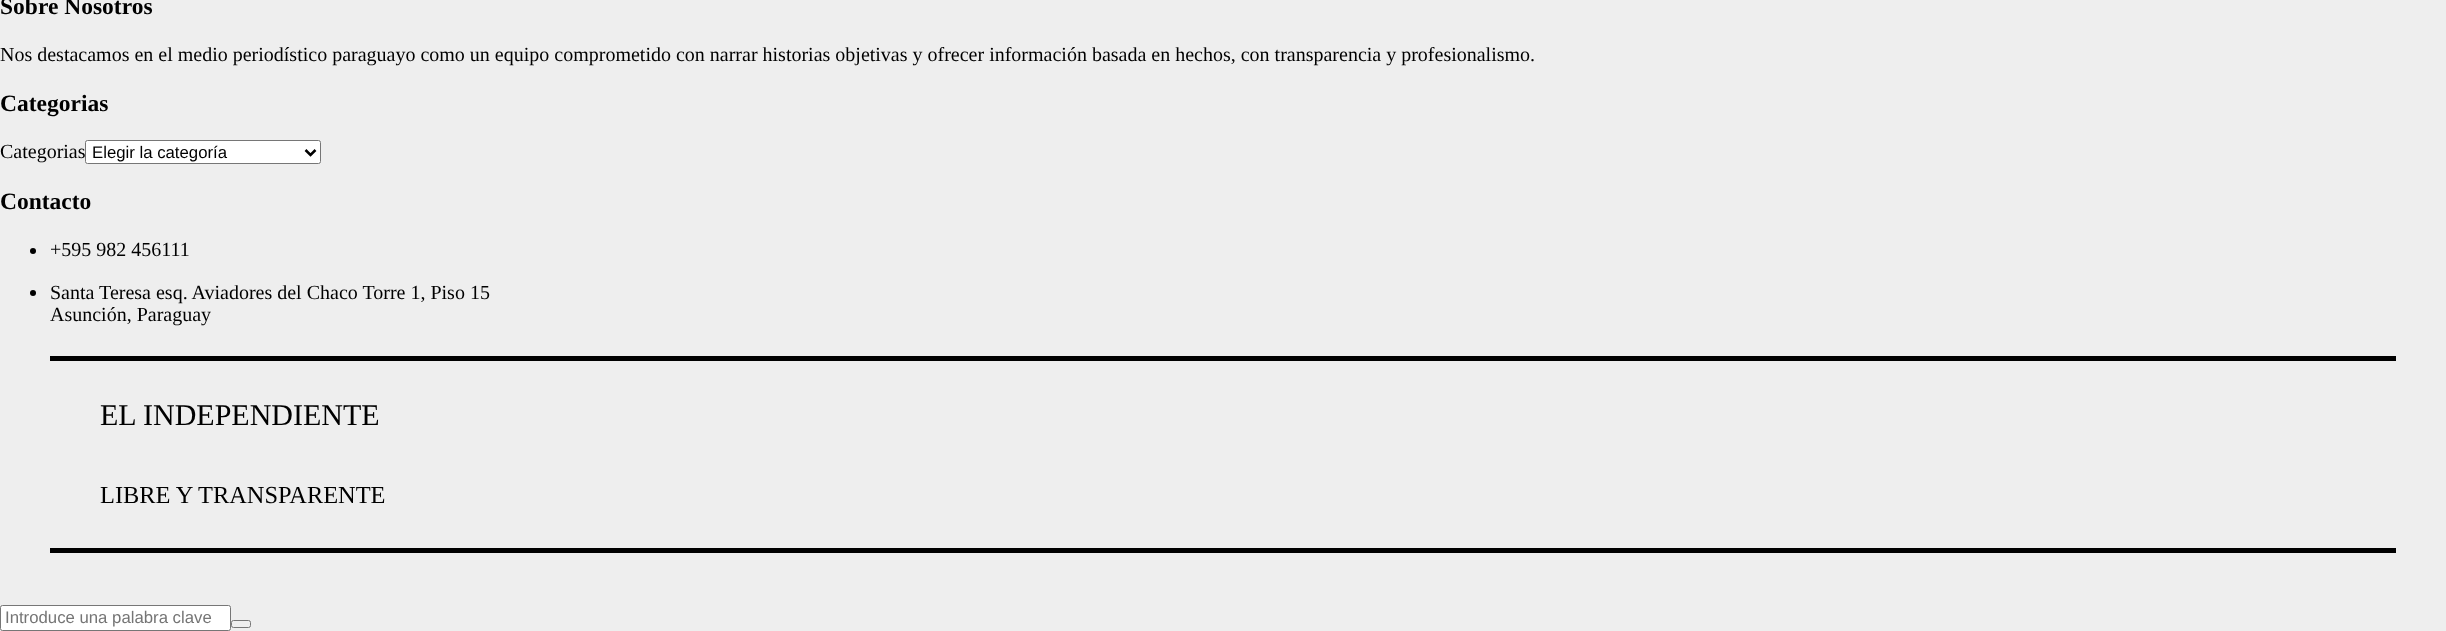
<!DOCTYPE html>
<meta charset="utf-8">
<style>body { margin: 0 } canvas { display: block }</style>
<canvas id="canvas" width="2446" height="631"></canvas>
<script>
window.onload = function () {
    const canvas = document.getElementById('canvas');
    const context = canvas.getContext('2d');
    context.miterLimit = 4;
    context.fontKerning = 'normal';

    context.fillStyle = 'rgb(238, 238, 238)';
    context.fillRect(0, 0, 2446, 631);
    context.fillStyle = 'rgb(255, 255, 255)';
    context.beginPath();
    context.roundRect(85.5, 140.5, 235, 23, 2);
    context.fill();
    context.strokeStyle = 'rgb(118, 118, 118)';
    context.stroke();
    context.beginPath();
    context.moveTo(305.5, 150);
    context.lineTo(310.5, 155);
    context.lineTo(315.5, 150);
    context.strokeStyle = 'rgb(0, 0, 0)';
    context.lineWidth = 2.5;
    context.stroke();
    context.fillStyle = 'rgb(0, 0, 0)';
    context.beginPath();
    context.arc(33, 251, 3, 0, 2 * Math.PI);
    context.fill();
    context.beginPath();
    context.arc(33, 293, 3, 0, 2 * Math.PI);
    context.fill();
    context.fillRect(50, 356, 2346, 5);
    context.fillRect(50, 548, 2346, 5);
    context.fillStyle = 'rgb(255, 255, 255)';
    context.beginPath();
    context.roundRect(0.5, 605.5, 230, 25, 2);
    context.fill();
    context.strokeStyle = 'rgb(118, 118, 118)';
    context.lineWidth = 1;
    context.stroke();
    context.beginPath();
    context.roundRect(231.5, 620.5, 19, 7, 2);
    context.stroke();
    context.font = 'bold 23.5px Liberation Serif';
    context.fillStyle = 'rgb(0, 0, 0)';
    context.fillText('Sobre Nosotros', 0, 14);
    context.font = '20px Liberation Serif';
    context.fillText('Nos destacamos en el medio periodístico paraguayo como un equipo comprometido con narrar historias objetivas y ofrecer información basada en hechos, con transparencia y profesionalismo.', 0, 61);
    context.font = 'bold 23.5px Liberation Serif';
    context.fillText('Categorias', 0, 111);
    context.font = '20px Liberation Serif';
    context.fillText('Categorias', 0, 158);
    context.font = '16.75px Liberation Sans';
    context.fillText('Elegir la categoría', 92, 158);
    context.font = 'bold 23.5px Liberation Serif';
    context.fillText('Contacto', 0, 209);
    context.font = '20px Liberation Serif';
    context.fillText('+595 982 456111', 50, 256);
    context.fillText('Santa Teresa esq. Aviadores del Chaco Torre 1, Piso 15', 50, 299);
    context.fillText('Asunción, Paraguay', 50, 321);
    context.font = '30px Liberation Serif';
    context.fillText('EL INDEPENDIENTE', 100, 425);
    context.font = '24.4px Liberation Serif';
    context.fillText('LIBRE Y TRANSPARENTE', 100, 503);
    context.font = '16.75px Liberation Sans';
    context.fillStyle = 'rgb(117, 117, 117)';
    context.fillText('Introduce una palabra clave', 5, 623);
};
</script>
